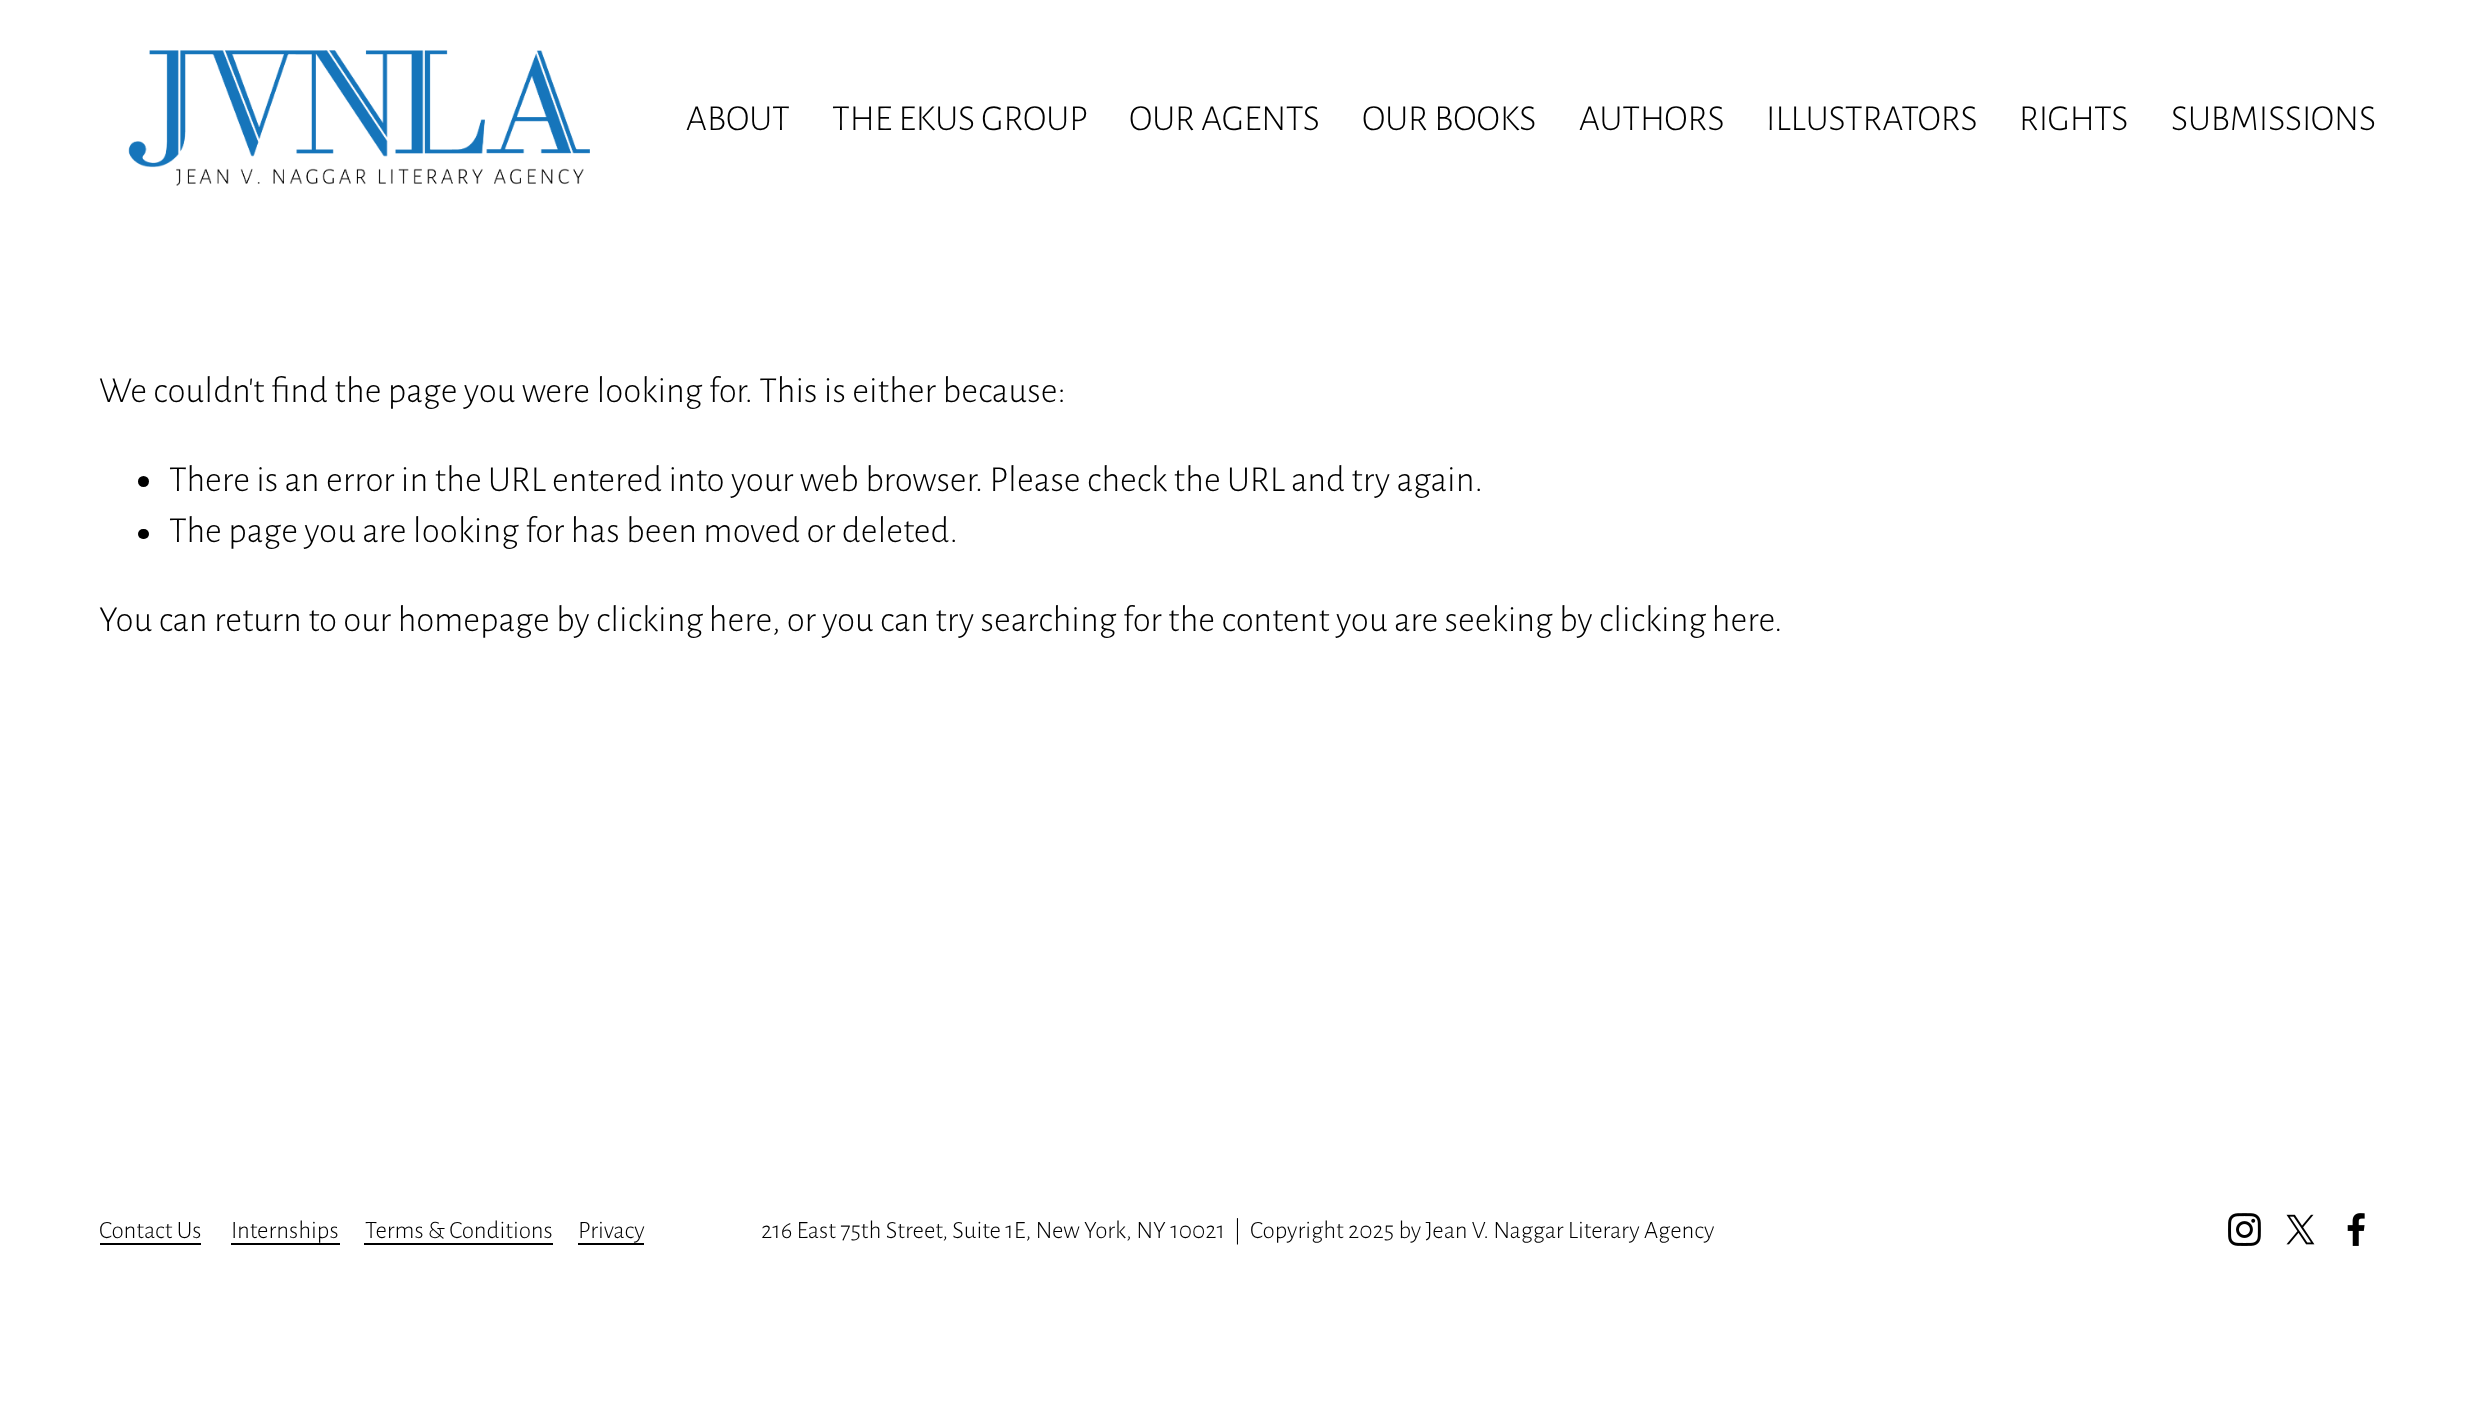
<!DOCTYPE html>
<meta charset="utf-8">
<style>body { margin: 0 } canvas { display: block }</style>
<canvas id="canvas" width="2474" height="1412"></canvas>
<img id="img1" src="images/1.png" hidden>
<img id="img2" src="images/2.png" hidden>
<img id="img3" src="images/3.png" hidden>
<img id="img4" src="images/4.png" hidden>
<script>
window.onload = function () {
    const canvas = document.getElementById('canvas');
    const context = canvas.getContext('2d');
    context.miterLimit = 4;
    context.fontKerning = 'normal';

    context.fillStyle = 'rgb(255, 255, 255)';
    context.fillRect(0, 0, 2474, 1412);
    context.drawImage(document.getElementById('img1'), 128, 50, 462, 136);
    context.fillStyle = 'rgb(0, 0, 0)';
    context.beginPath();
    context.arc(143.5, 481.5, 5.5, 0, 2 * Math.PI);
    context.fill();
    context.beginPath();
    context.roundRect(138, 529, 11, 10, 5);
    context.fill();
    context.fillRect(100, 1243, 101, 2);
    context.fillRect(231, 1243, 109, 2);
    context.fillRect(364, 1243, 189, 2);
    context.fillRect(578, 1243, 66, 2);
    context.drawImage(document.getElementById('img2'), 2228, 1213, 33, 33);
    context.drawImage(document.getElementById('img3'), 2286, 1214, 29, 31);
    context.drawImage(document.getElementById('img4'), 2347, 1213, 18, 33);
    context.font = '300 36.9px Alegreya Sans';
    context.fillText('ABOUT', 686, 130);
    context.fillText('THE EKUS GROUP', 832, 130);
    context.fillText('OUR AGENTS', 1129, 130);
    context.fillText('OUR BOOKS', 1362, 130);
    context.fillText('AUTHORS', 1579, 130);
    context.fillText('ILLUSTRATORS', 1766, 130);
    context.fillText('RIGHTS', 2019, 130);
    context.fillText('SUBMISSIONS', 2171, 130);
    context.fillText('We couldn\'t find the page you were looking for. This is either because:', 99, 402);
    context.fillText('There is an error in the URL entered into your web browser. Please check the URL and try again.', 169, 491);
    context.fillText('The page you are looking for has been moved or deleted.', 169, 542);
    context.fillText('You can return to our homepage by', 99, 631);
    context.wordSpacing = '-1px';
    context.fillText('clicking here', 596, 631);
    context.wordSpacing = '0px';
    context.fillText(', or you can try searching for the content you are seeking by', 772, 631);
    context.wordSpacing = '-1px';
    context.fillText('clicking here', 1599, 631);
    context.wordSpacing = '0px';
    context.fillText('.', 1774, 631);
    context.font = '300 25.05px Alegreya Sans';
    context.fillText('Contact Us', 99, 1238);
    context.fillText('Internships', 231, 1238);
    context.fillText('Terms & Conditions', 365, 1238);
    context.fillText('Privacy', 578, 1238);
    context.fillText('216 East 75th Street, Suite 1E, New York, NY 10021  |  Copyright 2025 by Jean V. Naggar Literary Agency', 761, 1238);
};
</script>
